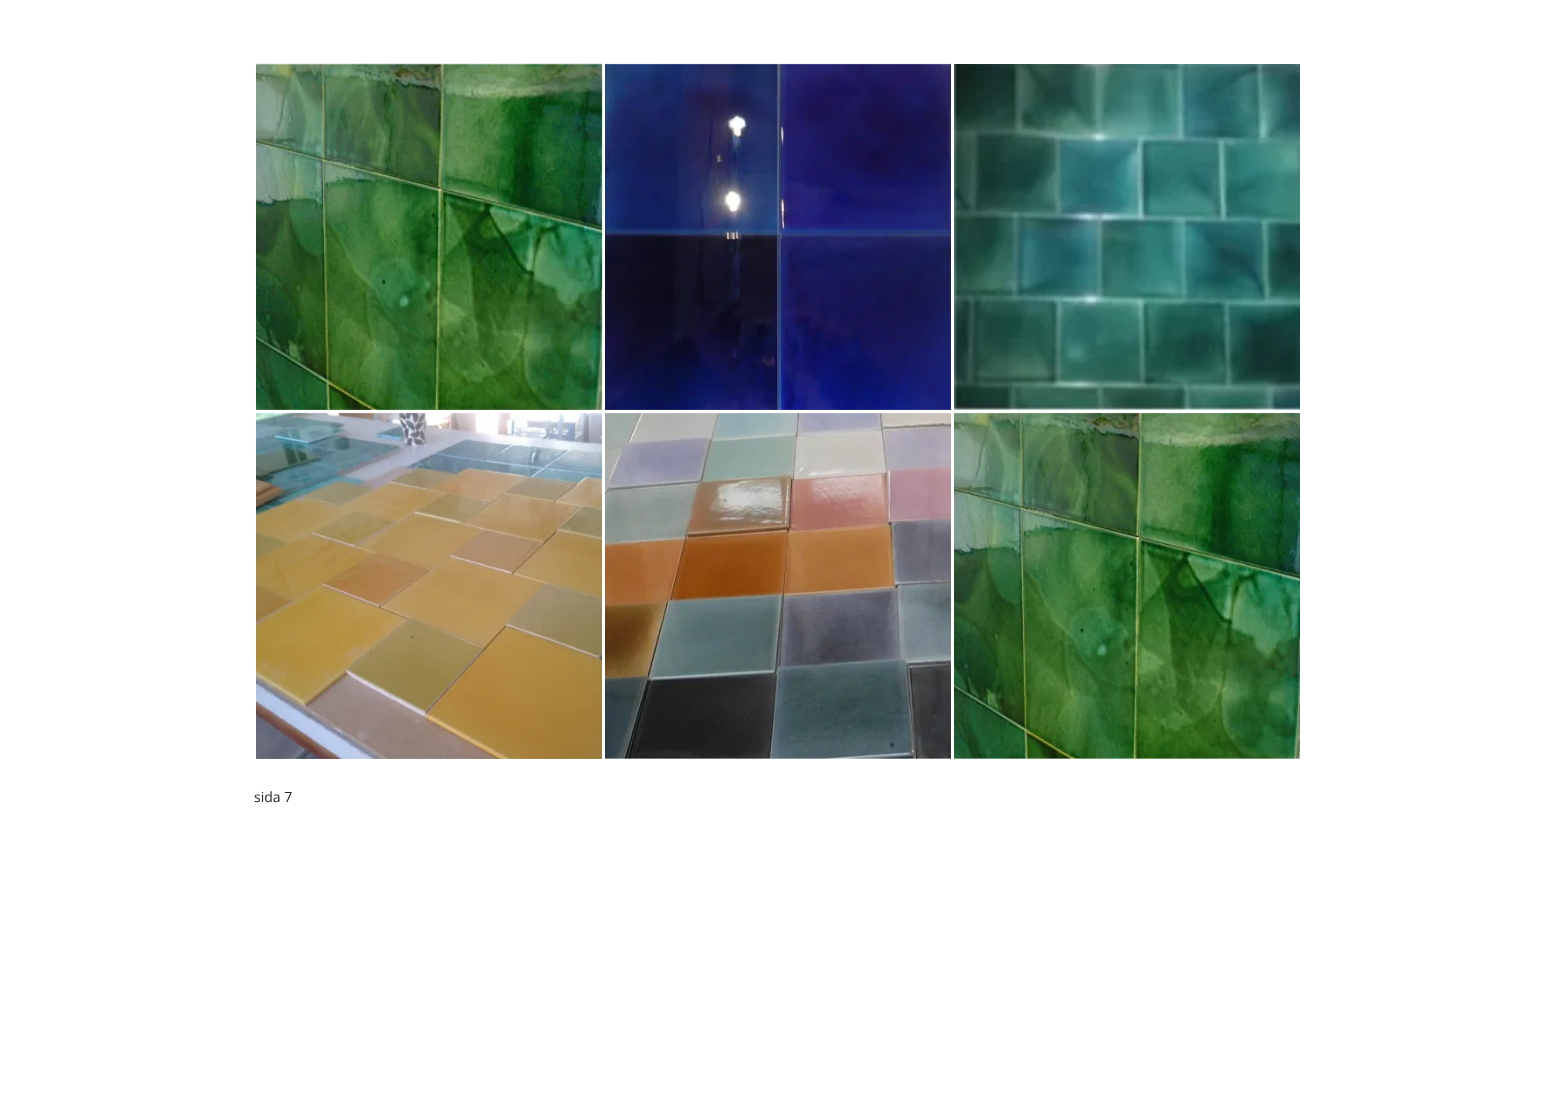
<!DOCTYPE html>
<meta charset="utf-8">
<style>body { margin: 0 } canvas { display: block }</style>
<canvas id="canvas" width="1558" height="1095"></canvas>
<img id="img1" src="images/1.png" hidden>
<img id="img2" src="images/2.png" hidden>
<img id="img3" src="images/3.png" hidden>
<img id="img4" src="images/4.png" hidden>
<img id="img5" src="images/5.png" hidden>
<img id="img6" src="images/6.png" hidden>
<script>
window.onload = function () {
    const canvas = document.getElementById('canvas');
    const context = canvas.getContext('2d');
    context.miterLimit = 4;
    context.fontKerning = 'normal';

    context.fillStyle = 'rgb(255, 255, 255)';
    context.fillRect(0, 0, 1558, 1095);
    context.drawImage(document.getElementById('img1'), 256, 63, 347, 347);
    context.drawImage(document.getElementById('img2'), 605, 63, 346, 347);
    context.drawImage(document.getElementById('img3'), 954, 64, 346, 346);
    context.drawImage(document.getElementById('img4'), 256, 412, 346, 347);
    context.drawImage(document.getElementById('img5'), 605, 412, 346, 347);
    context.drawImage(document.getElementById('img6'), 954, 412, 346, 347);
    context.font = '14px Open Sans';
    context.fillStyle = 'rgb(34, 34, 34)';
    context.fillText('sida 7', 254, 802);
};
</script>
